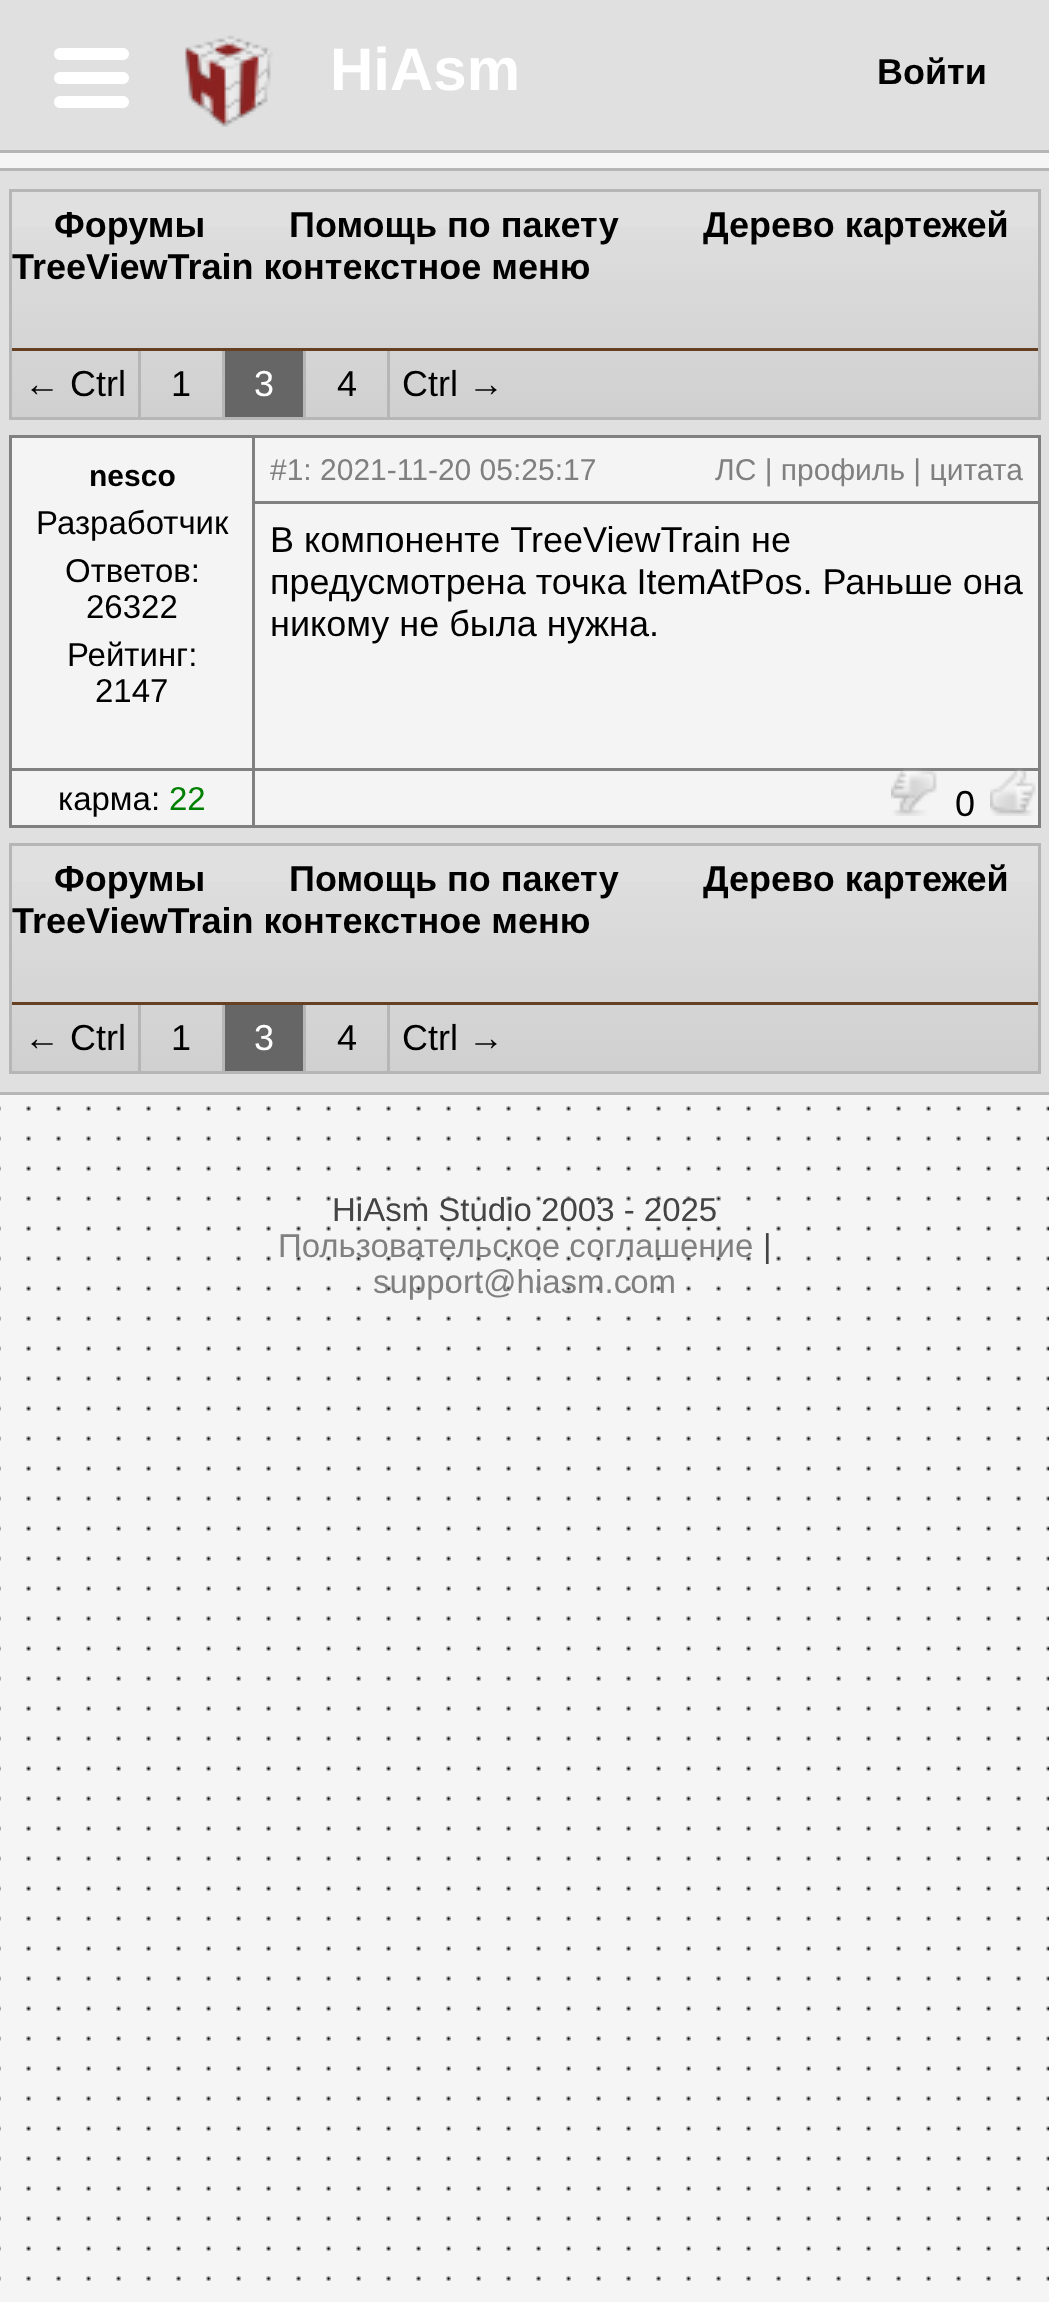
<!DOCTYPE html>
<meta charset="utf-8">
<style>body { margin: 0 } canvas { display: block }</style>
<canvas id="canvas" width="1049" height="2302"></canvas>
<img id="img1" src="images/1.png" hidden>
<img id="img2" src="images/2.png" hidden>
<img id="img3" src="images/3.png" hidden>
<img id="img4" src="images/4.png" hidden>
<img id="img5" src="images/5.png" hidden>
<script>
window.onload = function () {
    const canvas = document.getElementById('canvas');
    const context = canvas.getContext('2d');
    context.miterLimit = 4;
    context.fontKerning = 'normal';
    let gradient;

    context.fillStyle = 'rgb(245, 245, 245)';
    context.fillRect(0, 0, 1049, 2302);
    context.drawImage(document.getElementById('img1'), 0, 1106, 1049, 1175);
    context.fillStyle = 'rgb(224, 224, 224)';
    context.fillRect(0, 0, 1049, 150);
    context.fillStyle = 'rgb(182, 182, 182)';
    context.fillRect(0, 150, 1049, 3);
    context.drawImage(document.getElementById('img2'), 54, 48, 75, 60);
    context.drawImage(document.getElementById('img3'), 184, 35, 89, 92);
    context.fillStyle = 'rgb(224, 224, 224)';
    context.fillRect(0, 171, 1049, 921);
    context.fillStyle = 'rgb(182, 182, 182)';
    context.fillRect(0, 168, 1049, 3);
    context.fillRect(0, 1092, 1049, 3);
    gradient = context.createLinearGradient(12, 192, 12, 417);
    gradient.addColorStop(0, 'rgb(224, 224, 224)');
    gradient.addColorStop(1, 'rgb(208, 208, 208)');
    context.fillStyle = gradient;
    context.fillRect(12, 227, 1026, 190);
    context.strokeStyle = 'rgb(182, 182, 182)';
    context.lineWidth = 3;
    context.strokeRect(10.5, 190.5, 1029, 228);
    context.fillStyle = 'rgb(101, 64, 34)';
    context.fillRect(12, 348, 1026, 3);
    context.fillStyle = 'rgb(182, 182, 182)';
    context.fillRect(138, 351, 3, 66);
    context.fillStyle = 'rgb(102, 102, 102)';
    context.fillRect(225, 351, 78, 66);
    context.fillStyle = 'rgb(182, 182, 182)';
    context.fillRect(222, 351, 3, 66);
    context.fillRect(303, 351, 3, 66);
    context.fillRect(387, 351, 3, 66);
    context.fillStyle = 'rgb(128, 128, 128)';
    context.fillRect(9, 435, 1032, 393);
    context.fillStyle = 'rgb(244, 244, 244)';
    context.fillRect(12, 438, 240, 330);
    context.fillRect(255, 438, 783, 63);
    context.fillRect(255, 504, 783, 264);
    context.fillRect(12, 771, 240, 54);
    context.fillRect(255, 771, 783, 54);
    context.drawImage(document.getElementById('img4'), 891, 768, 46, 48);
    context.drawImage(document.getElementById('img5'), 990, 768, 46, 48);
    gradient = context.createLinearGradient(12, 846, 12, 1071);
    gradient.addColorStop(0, 'rgb(224, 224, 224)');
    gradient.addColorStop(1, 'rgb(208, 208, 208)');
    context.fillStyle = gradient;
    context.fillRect(12, 881, 1026, 190);
    context.strokeRect(10.5, 844.5, 1029, 228);
    context.fillStyle = 'rgb(101, 64, 34)';
    context.fillRect(12, 1002, 1026, 3);
    context.fillStyle = 'rgb(182, 182, 182)';
    context.fillRect(138, 1005, 3, 66);
    context.fillStyle = 'rgb(102, 102, 102)';
    context.fillRect(225, 1005, 78, 66);
    context.fillStyle = 'rgb(182, 182, 182)';
    context.fillRect(222, 1005, 3, 66);
    context.fillRect(303, 1005, 3, 66);
    context.fillRect(387, 1005, 3, 66);
    context.font = 'bold 60px Liberation Sans';
    context.fillStyle = 'rgb(255, 255, 255)';
    context.fillText('HiAsm', 330, 90);
    context.font = 'bold 36px Liberation Sans';
    context.fillStyle = 'rgb(0, 0, 0)';
    context.fillText('Войти', 877, 84);
    context.fillText('Форумы', 54, 237);
    context.fillText('Помощь по пакету', 289, 237);
    context.fillText('Дерево картежей', 703, 237);
    context.fillText('TreeViewTrain контекстное меню', 12, 279);
    context.font = '36px Liberation Sans';
    context.fillText('← Ctrl', 24, 396);
    context.fillText('1', 171, 396);
    context.fillStyle = 'rgb(255, 255, 255)';
    context.fillText('3', 254, 396);
    context.fillStyle = 'rgb(0, 0, 0)';
    context.fillText('4', 337, 396);
    context.fillText('Ctrl →', 402, 396);
    context.font = 'bold 30px Liberation Sans';
    context.fillText('nesco', 89, 486);
    context.font = '33px Liberation Sans';
    context.fillText('Разработчик', 36, 534);
    context.fillText('Ответов:', 65, 582);
    context.fillText('26322', 86, 618);
    context.fillText('Рейтинг:', 67, 666);
    context.fillText('2147', 95, 702);
    context.font = '30px Liberation Sans';
    context.fillStyle = 'rgb(128, 128, 128)';
    context.fillText('#1: 2021-11-20 05:25:17', 270, 480);
    context.fillText('ЛС | профиль | цитата', 715, 480);
    context.font = '36px Liberation Sans';
    context.fillStyle = 'rgb(0, 0, 0)';
    context.fillText('В компоненте TreeViewTrain не', 270, 552);
    context.fillText('предусмотрена точка ItеmAtPos. Раньше она', 270, 594);
    context.fillText('никому не была нужна.', 270, 636);
    context.font = '33px Liberation Sans';
    context.fillText('карма:', 58, 810);
    context.fillStyle = 'rgb(0, 128, 0)';
    context.fillText('22', 169, 810);
    context.font = '36px Liberation Sans';
    context.fillStyle = 'rgb(0, 0, 0)';
    context.fillText('0', 955, 816);
    context.font = 'bold 36px Liberation Sans';
    context.fillText('Форумы', 54, 891);
    context.fillText('Помощь по пакету', 289, 891);
    context.fillText('Дерево картежей', 703, 891);
    context.fillText('TreeViewTrain контекстное меню', 12, 933);
    context.font = '36px Liberation Sans';
    context.fillText('← Ctrl', 24, 1050);
    context.fillText('1', 171, 1050);
    context.fillStyle = 'rgb(255, 255, 255)';
    context.fillText('3', 254, 1050);
    context.fillStyle = 'rgb(0, 0, 0)';
    context.fillText('4', 337, 1050);
    context.fillText('Ctrl →', 402, 1050);
    context.font = '33px Liberation Sans';
    context.fillStyle = 'rgb(68, 68, 68)';
    context.fillText('HiAsm Studio 2003 - 2025', 332, 1221);
    context.fillStyle = 'rgb(128, 128, 128)';
    context.fillText('Пользовательское соглашение', 278, 1257);
    context.fillStyle = 'rgb(68, 68, 68)';
    context.fillText('|', 763, 1257);
    context.fillStyle = 'rgb(128, 128, 128)';
    context.fillText('support@hiasm.com', 373, 1293);
};
</script>
